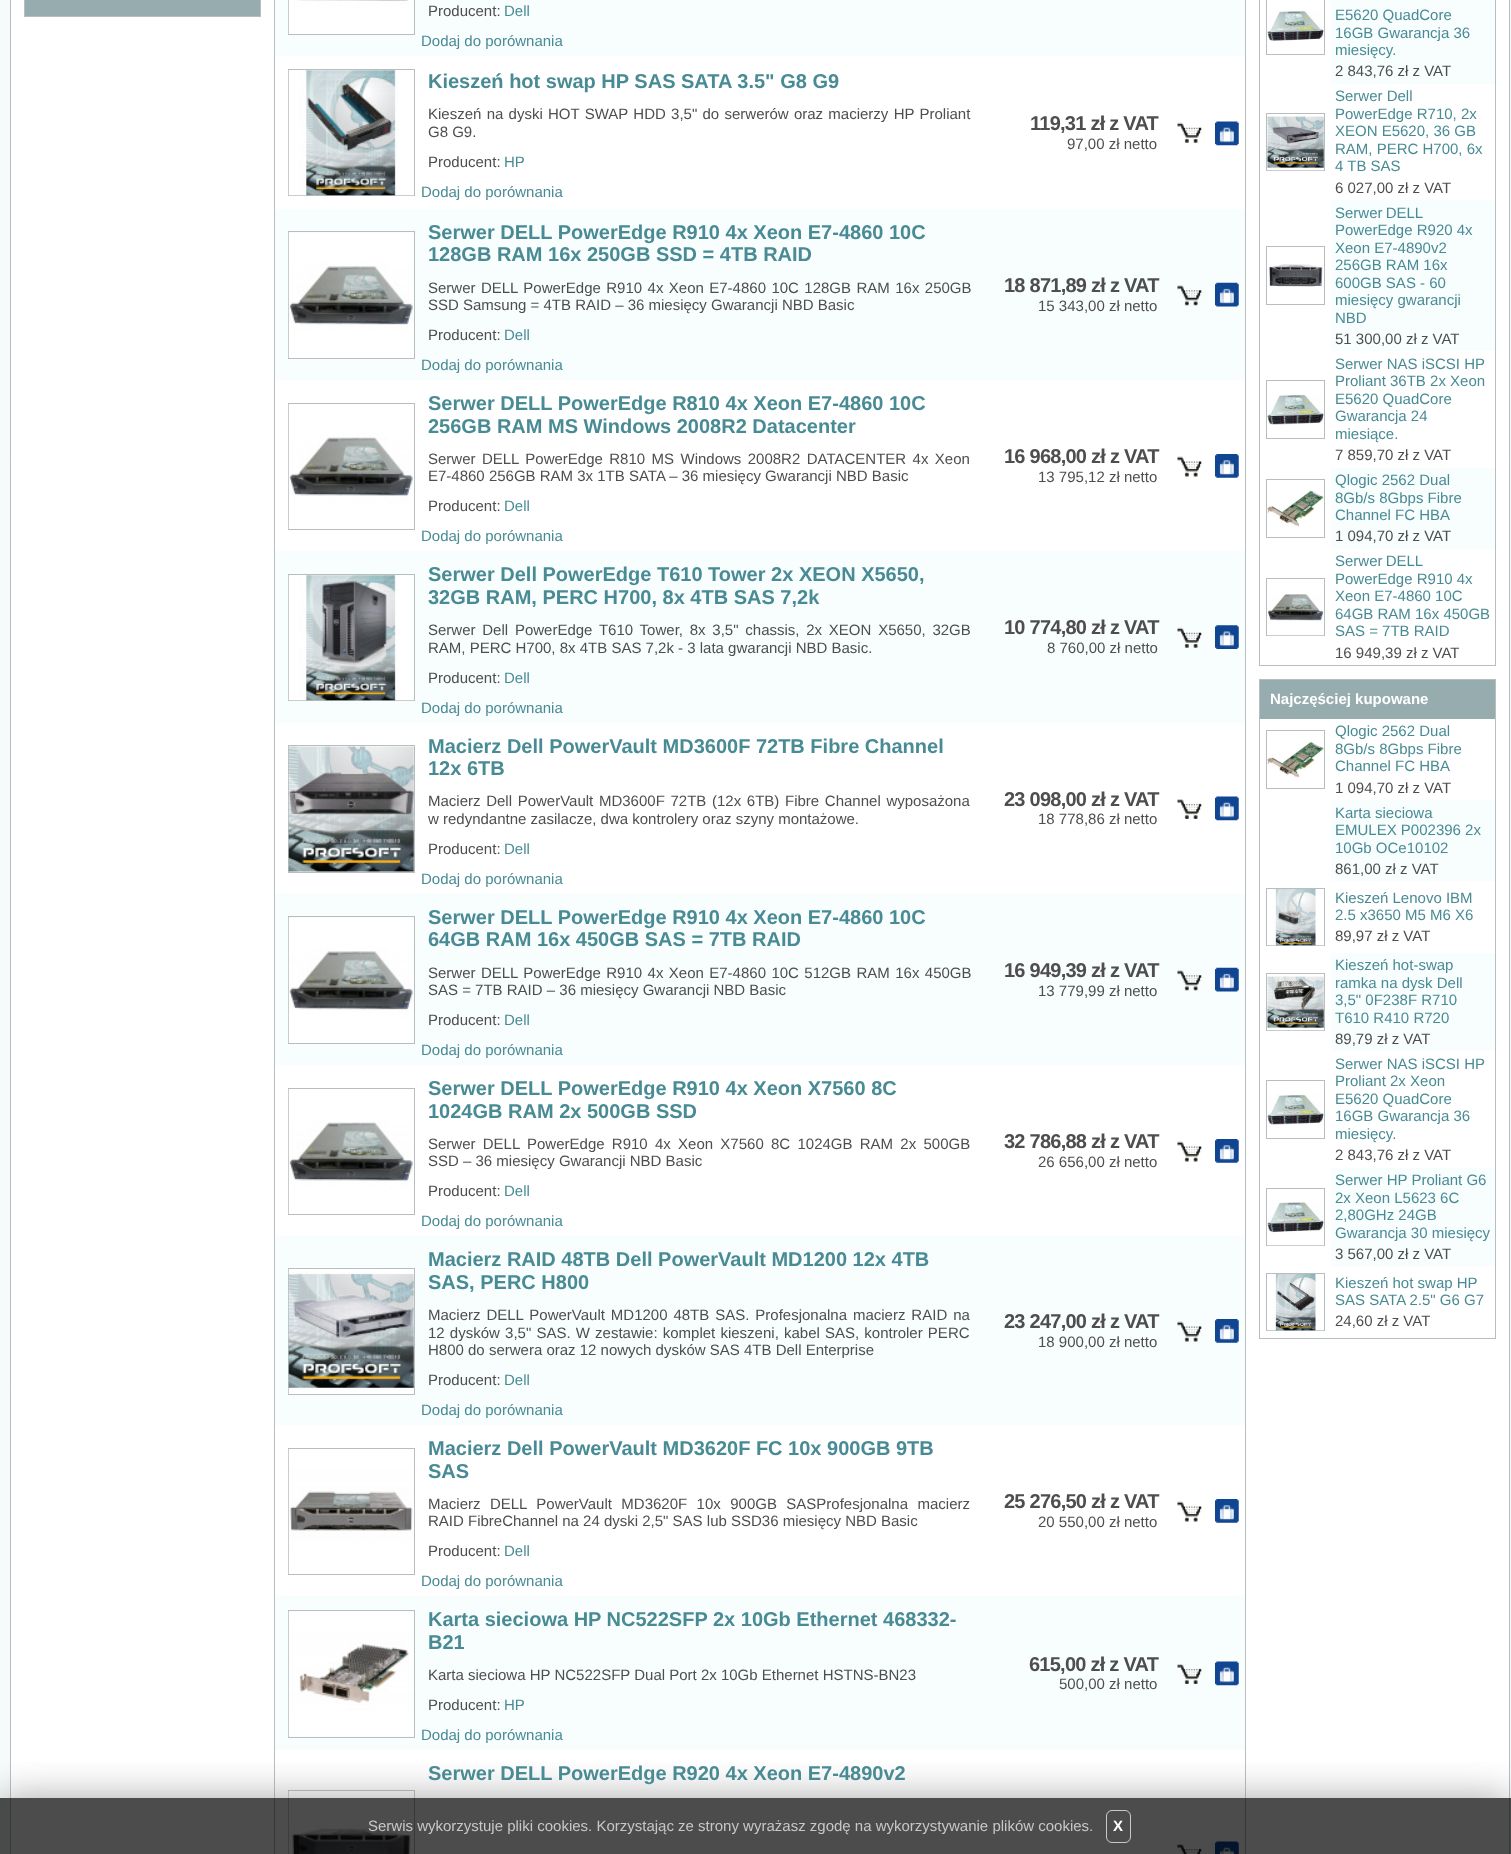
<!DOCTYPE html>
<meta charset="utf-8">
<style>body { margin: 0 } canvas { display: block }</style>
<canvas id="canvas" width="1511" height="1854"></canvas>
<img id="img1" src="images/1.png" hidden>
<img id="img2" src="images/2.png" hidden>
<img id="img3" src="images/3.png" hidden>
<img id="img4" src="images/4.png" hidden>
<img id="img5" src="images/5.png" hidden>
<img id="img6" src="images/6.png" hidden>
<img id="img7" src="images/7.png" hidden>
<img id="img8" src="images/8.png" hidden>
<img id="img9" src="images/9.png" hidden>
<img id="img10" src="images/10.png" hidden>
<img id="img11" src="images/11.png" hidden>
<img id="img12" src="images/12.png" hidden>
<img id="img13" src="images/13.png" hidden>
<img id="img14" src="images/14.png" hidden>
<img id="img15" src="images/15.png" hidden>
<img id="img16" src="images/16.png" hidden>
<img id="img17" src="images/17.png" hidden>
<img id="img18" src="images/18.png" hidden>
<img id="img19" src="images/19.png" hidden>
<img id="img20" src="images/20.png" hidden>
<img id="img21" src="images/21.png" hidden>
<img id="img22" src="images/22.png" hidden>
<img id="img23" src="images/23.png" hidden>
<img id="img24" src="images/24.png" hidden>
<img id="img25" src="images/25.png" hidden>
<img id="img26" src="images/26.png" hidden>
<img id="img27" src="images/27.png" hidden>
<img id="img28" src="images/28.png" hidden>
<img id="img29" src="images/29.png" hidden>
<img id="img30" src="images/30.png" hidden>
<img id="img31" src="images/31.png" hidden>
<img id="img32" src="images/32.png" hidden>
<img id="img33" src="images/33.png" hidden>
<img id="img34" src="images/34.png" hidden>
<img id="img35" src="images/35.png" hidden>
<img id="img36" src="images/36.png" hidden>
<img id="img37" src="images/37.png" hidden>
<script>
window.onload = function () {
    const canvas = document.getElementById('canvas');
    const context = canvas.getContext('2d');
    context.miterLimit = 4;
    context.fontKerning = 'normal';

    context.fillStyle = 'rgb(245, 250, 251)';
    context.fillRect(0, 0, 1511, 1854);
    context.fillStyle = 'rgb(255, 255, 255)';
    context.beginPath();
    context.rect(10.5, -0.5, 1499, 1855);
    context.fill();
    context.strokeStyle = 'rgb(184, 189, 190)';
    context.stroke();
    context.fillStyle = 'rgb(150, 172, 175)';
    context.fillRect(25, 0, 235, 16);
    context.fillStyle = 'rgb(184, 189, 190)';
    context.fillRect(260, 0, 1, 16);
    context.fillRect(24, 0, 1, 16);
    context.fillRect(24, 16, 237, 1);
    context.fillRect(1245, 0, 1, 1854);
    context.fillRect(274, 0, 1, 1854);
    context.fillStyle = 'rgb(248, 253, 254)';
    context.fillRect(275, 0, 970, 56);
    context.strokeRect(288.5, -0.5, 126, 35);
    context.drawImage(document.getElementById('img1'), 288, 0, 126, 34);
    context.strokeRect(288.5, 69.5, 126, 126);
    context.drawImage(document.getElementById('img2'), 288, 70, 126, 126);
    context.drawImage(document.getElementById('img3'), 1177, 122, 25, 21);
    context.drawImage(document.getElementById('img4'), 1215, 121, 24, 25);
    context.fillRect(275, 209, 970, 171);
    context.strokeRect(288.5, 231.5, 126, 127);
    context.drawImage(document.getElementById('img5'), 288, 232, 126, 126);
    context.drawImage(document.getElementById('img6'), 1177, 285, 25, 21);
    context.drawImage(document.getElementById('img7'), 1215, 282, 24, 25);
    context.strokeRect(288.5, 403.5, 126, 126);
    context.drawImage(document.getElementById('img8'), 288, 404, 125, 125);
    context.drawImage(document.getElementById('img9'), 1177, 456, 25, 21);
    context.drawImage(document.getElementById('img10'), 1215, 454, 24, 24);
    context.fillRect(275, 551, 970, 172);
    context.strokeRect(288.5, 574.5, 126, 126);
    context.drawImage(document.getElementById('img11'), 288, 575, 126, 126);
    context.drawImage(document.getElementById('img12'), 1177, 627, 25, 21);
    context.drawImage(document.getElementById('img13'), 1215, 625, 24, 24);
    context.strokeRect(288.5, 745.5, 126, 127);
    context.drawImage(document.getElementById('img14'), 288, 746, 126, 126);
    context.drawImage(document.getElementById('img15'), 1177, 799, 25, 20);
    context.drawImage(document.getElementById('img4'), 1215, 796, 24, 25);
    context.fillRect(275, 894, 970, 171);
    context.strokeRect(288.5, 916.5, 126, 127);
    context.drawImage(document.getElementById('img16'), 288, 917, 126, 126);
    context.drawImage(document.getElementById('img6'), 1177, 970, 25, 21);
    context.drawImage(document.getElementById('img7'), 1215, 967, 24, 25);
    context.strokeRect(288.5, 1088.5, 126, 126);
    context.drawImage(document.getElementById('img8'), 288, 1089, 125, 125);
    context.drawImage(document.getElementById('img9'), 1177, 1141, 25, 21);
    context.drawImage(document.getElementById('img10'), 1215, 1139, 24, 24);
    context.fillRect(275, 1236, 970, 189);
    context.strokeRect(288.5, 1268.5, 126, 126);
    context.drawImage(document.getElementById('img17'), 288, 1269, 126, 125);
    context.drawImage(document.getElementById('img18'), 1177, 1321, 25, 21);
    context.drawImage(document.getElementById('img19'), 1215, 1319, 24, 24);
    context.strokeRect(288.5, 1448.5, 126, 126);
    context.drawImage(document.getElementById('img20'), 288, 1449, 125, 125);
    context.drawImage(document.getElementById('img9'), 1177, 1501, 25, 21);
    context.drawImage(document.getElementById('img10'), 1215, 1499, 24, 24);
    context.fillRect(275, 1596, 970, 154);
    context.strokeRect(288.5, 1610.5, 126, 127);
    context.drawImage(document.getElementById('img21'), 288, 1611, 126, 126);
    context.drawImage(document.getElementById('img22'), 1177, 1664, 25, 20);
    context.drawImage(document.getElementById('img23'), 1215, 1661, 24, 25);
    context.strokeRect(288.5, 1790.5, 126, 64);
    context.drawImage(document.getElementById('img24'), 288, 1791, 123, 63);
    context.drawImage(document.getElementById('img25'), 1177, 1844, 25, 10);
    context.drawImage(document.getElementById('img26'), 1215, 1841, 24, 13);
    context.fillStyle = 'rgb(184, 189, 190)';
    context.fillRect(1495, 0, 1, 666);
    context.fillRect(1259, 665, 237, 1);
    context.fillRect(1259, 0, 1, 666);
    context.strokeRect(1266.5, -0.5, 58, 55);
    context.drawImage(document.getElementById('img27'), 1267, 10, 57, 31);
    context.fillStyle = 'rgb(248, 253, 254)';
    context.fillRect(1331, 0, 164, 84);
    context.strokeRect(1266.5, 113.5, 58, 57);
    context.drawImage(document.getElementById('img28'), 1267, 116, 57, 55);
    context.strokeRect(1266.5, 246.5, 58, 58);
    context.drawImage(document.getElementById('img29'), 1269, 264, 54, 23);
    context.fillRect(1331, 200, 164, 151);
    context.strokeRect(1266.5, 380.5, 58, 58);
    context.drawImage(document.getElementById('img30'), 1267, 394, 57, 31);
    context.strokeRect(1266.5, 479.5, 58, 58);
    context.drawImage(document.getElementById('img31'), 1267, 490, 57, 37);
    context.fillRect(1331, 468, 164, 81);
    context.strokeRect(1266.5, 578.5, 58, 57);
    context.drawImage(document.getElementById('img32'), 1267, 594, 57, 42);
    context.fillStyle = 'rgb(150, 172, 175)';
    context.fillRect(1260, 680, 235, 39);
    context.fillStyle = 'rgb(184, 189, 190)';
    context.fillRect(1259, 679, 237, 1);
    context.fillRect(1495, 679, 1, 660);
    context.fillRect(1259, 679, 1, 40);
    context.fillRect(1259, 1338, 237, 1);
    context.fillRect(1259, 719, 1, 620);
    context.strokeRect(1266.5, 730.5, 58, 58);
    context.drawImage(document.getElementById('img33'), 1267, 742, 57, 36);
    context.fillStyle = 'rgb(248, 253, 254)';
    context.fillRect(1331, 800, 164, 81);
    context.strokeRect(1266.5, 888.5, 58, 57);
    context.drawImage(document.getElementById('img34'), 1267, 889, 57, 57);
    context.strokeRect(1266.5, 973.5, 58, 57);
    context.drawImage(document.getElementById('img35'), 1267, 976, 57, 55);
    context.fillRect(1331, 953, 164, 98);
    context.strokeRect(1266.5, 1080.5, 58, 58);
    context.drawImage(document.getElementById('img30'), 1267, 1094, 57, 31);
    context.strokeRect(1266.5, 1188.5, 58, 57);
    context.drawImage(document.getElementById('img36'), 1267, 1202, 57, 44);
    context.fillRect(1331, 1168, 164, 98);
    context.strokeRect(1266.5, 1273.5, 58, 57);
    context.drawImage(document.getElementById('img37'), 1267, 1274, 57, 57);
    context.save();
    context.beginPath();
    context.rect(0, 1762, 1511, 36);
    context.clip();
    context.fillStyle = 'rgba(128, 128, 128, 0.7)';
    context.filter = 'blur(19px)';
    context.beginPath();
    context.rect(0, 1798, 1511, 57);
    context.fill();
    context.filter = 'none';
    context.restore();
    context.fillStyle = 'rgba(0, 0, 0, 0.7)';
    context.fillRect(0, 1798, 1511, 56);
    context.beginPath();
    context.roundRect(1106.5, 1810.5, 24, 32, 5.5);
    context.strokeStyle = 'rgba(255, 255, 255, 0.7)';
    context.stroke();
    context.font = '15px Liberation Sans';
    context.fillStyle = 'rgb(78, 78, 78)';
    context.fillText('Producent:', 428, 16);
    context.fillStyle = 'rgb(73, 139, 148)';
    context.fillText('Dell', 504, 16);
    context.fillText('Dodaj do porównania', 421, 46);
    context.font = 'bold 20px Liberation Sans';
    context.fillText('Kieszeń hot swap HP SAS SATA 3.5" G8 G9', 428, 88);
    context.wordSpacing = '1.1px';
    context.font = '15px Liberation Sans';
    context.fillStyle = 'rgb(78, 78, 78)';
    context.fillText('Kieszeń na dyski HOT SWAP HDD 3,5" do serwerów oraz macierzy HP Proliant', 428, 119);
    context.wordSpacing = '0px';
    context.fillText('G8 G9.', 428, 137);
    context.fillText('Producent:', 428, 167);
    context.fillStyle = 'rgb(73, 139, 148)';
    context.fillText('HP', 504, 167);
    context.fillText('Dodaj do porównania', 421, 197);
    context.letterSpacing = '-0.75px';
    context.font = 'bold 20px Liberation Sans';
    context.fillStyle = 'rgb(78, 78, 78)';
    context.fillText('119,31 zł z VAT', 1030, 130);
    context.letterSpacing = '0px';
    context.font = '15px Liberation Sans';
    context.fillText('97,00 zł netto', 1067, 149);
    context.font = 'bold 20px Liberation Sans';
    context.fillStyle = 'rgb(73, 139, 148)';
    context.fillText('Serwer DELL PowerEdge R910 4x Xeon E7-4860 10C', 428, 239);
    context.fillText('128GB RAM 16x 250GB SSD = 4TB RAID', 428, 261);
    context.wordSpacing = '1.25px';
    context.font = '15px Liberation Sans';
    context.fillStyle = 'rgb(78, 78, 78)';
    context.fillText('Serwer DELL PowerEdge R910 4x Xeon E7-4860 10C 128GB RAM 16x 250GB', 428, 293);
    context.wordSpacing = '0px';
    context.fillText('SSD Samsung = 4TB RAID – 36 miesięcy Gwarancji NBD Basic', 428, 310);
    context.fillText('Producent:', 428, 340);
    context.fillStyle = 'rgb(73, 139, 148)';
    context.fillText('Dell', 504, 340);
    context.fillText('Dodaj do porównania', 421, 370);
    context.letterSpacing = '-0.75px';
    context.font = 'bold 20px Liberation Sans';
    context.fillStyle = 'rgb(78, 78, 78)';
    context.fillText('18 871,89 zł z VAT', 1004, 292);
    context.letterSpacing = '0px';
    context.font = '15px Liberation Sans';
    context.fillText('15 343,00 zł netto', 1038, 311);
    context.font = 'bold 20px Liberation Sans';
    context.fillStyle = 'rgb(73, 139, 148)';
    context.fillText('Serwer DELL PowerEdge R810 4x Xeon E7-4860 10C', 428, 410);
    context.fillText('256GB RAM MS Windows 2008R2 Datacenter', 428, 433);
    context.wordSpacing = '2.25px';
    context.font = '15px Liberation Sans';
    context.fillStyle = 'rgb(78, 78, 78)';
    context.fillText('Serwer DELL PowerEdge R810 MS Windows 2008R2 DATACENTER 4x Xeon', 428, 464);
    context.wordSpacing = '0px';
    context.fillText('E7-4860 256GB RAM 3x 1TB SATA – 36 miesięcy Gwarancji NBD Basic', 428, 481);
    context.fillText('Producent:', 428, 511);
    context.fillStyle = 'rgb(73, 139, 148)';
    context.fillText('Dell', 504, 511);
    context.fillText('Dodaj do porównania', 421, 541);
    context.letterSpacing = '-0.75px';
    context.font = 'bold 20px Liberation Sans';
    context.fillStyle = 'rgb(78, 78, 78)';
    context.fillText('16 968,00 zł z VAT', 1004, 463);
    context.letterSpacing = '0px';
    context.font = '15px Liberation Sans';
    context.fillText('13 795,12 zł netto', 1038, 482);
    context.font = 'bold 20px Liberation Sans';
    context.fillStyle = 'rgb(73, 139, 148)';
    context.fillText('Serwer Dell PowerEdge T610 Tower 2x XEON X5650,', 428, 581);
    context.fillText('32GB RAM, PERC H700, 8x 4TB SAS 7,2k', 428, 604);
    context.wordSpacing = '2.6px';
    context.font = '15px Liberation Sans';
    context.fillStyle = 'rgb(78, 78, 78)';
    context.fillText('Serwer Dell PowerEdge T610 Tower, 8x 3,5" chassis, 2x XEON X5650, 32GB', 428, 635);
    context.wordSpacing = '0px';
    context.fillText('RAM, PERC H700, 8x 4TB SAS 7,2k - 3 lata gwarancji NBD Basic.', 428, 653);
    context.fillText('Producent:', 428, 683);
    context.fillStyle = 'rgb(73, 139, 148)';
    context.fillText('Dell', 504, 683);
    context.fillText('Dodaj do porównania', 421, 713);
    context.letterSpacing = '-0.75px';
    context.font = 'bold 20px Liberation Sans';
    context.fillStyle = 'rgb(78, 78, 78)';
    context.fillText('10 774,80 zł z VAT', 1004, 634);
    context.letterSpacing = '0px';
    context.font = '15px Liberation Sans';
    context.fillText('8 760,00 zł netto', 1047, 653);
    context.font = 'bold 20px Liberation Sans';
    context.fillStyle = 'rgb(73, 139, 148)';
    context.fillText('Macierz Dell PowerVault MD3600F 72TB Fibre Channel', 428, 753);
    context.fillText('12x 6TB', 428, 775);
    context.wordSpacing = '1.5px';
    context.font = '15px Liberation Sans';
    context.fillStyle = 'rgb(78, 78, 78)';
    context.fillText('Macierz Dell PowerVault MD3600F 72TB (12x 6TB) Fibre Channel wyposażona', 428, 806);
    context.wordSpacing = '0px';
    context.fillText('w redyndantne zasilacze, dwa kontrolery oraz szyny montażowe.', 428, 824);
    context.fillText('Producent:', 428, 854);
    context.fillStyle = 'rgb(73, 139, 148)';
    context.fillText('Dell', 504, 854);
    context.fillText('Dodaj do porównania', 421, 884);
    context.letterSpacing = '-0.75px';
    context.font = 'bold 20px Liberation Sans';
    context.fillStyle = 'rgb(78, 78, 78)';
    context.fillText('23 098,00 zł z VAT', 1004, 806);
    context.letterSpacing = '0px';
    context.font = '15px Liberation Sans';
    context.fillText('18 778,86 zł netto', 1038, 824);
    context.font = 'bold 20px Liberation Sans';
    context.fillStyle = 'rgb(73, 139, 148)';
    context.fillText('Serwer DELL PowerEdge R910 4x Xeon E7-4860 10C', 428, 924);
    context.fillText('64GB RAM 16x 450GB SAS = 7TB RAID', 428, 946);
    context.wordSpacing = '1.25px';
    context.font = '15px Liberation Sans';
    context.fillStyle = 'rgb(78, 78, 78)';
    context.fillText('Serwer DELL PowerEdge R910 4x Xeon E7-4860 10C 512GB RAM 16x 450GB', 428, 978);
    context.wordSpacing = '0px';
    context.fillText('SAS = 7TB RAID – 36 miesięcy Gwarancji NBD Basic', 428, 995);
    context.fillText('Producent:', 428, 1025);
    context.fillStyle = 'rgb(73, 139, 148)';
    context.fillText('Dell', 504, 1025);
    context.fillText('Dodaj do porównania', 421, 1055);
    context.letterSpacing = '-0.75px';
    context.font = 'bold 20px Liberation Sans';
    context.fillStyle = 'rgb(78, 78, 78)';
    context.fillText('16 949,39 zł z VAT', 1004, 977);
    context.letterSpacing = '0px';
    context.font = '15px Liberation Sans';
    context.fillText('13 779,99 zł netto', 1038, 996);
    context.font = 'bold 20px Liberation Sans';
    context.fillStyle = 'rgb(73, 139, 148)';
    context.fillText('Serwer DELL PowerEdge R910 4x Xeon X7560 8C', 428, 1095);
    context.fillText('1024GB RAM 2x 500GB SSD', 428, 1118);
    context.wordSpacing = '3.1px';
    context.font = '15px Liberation Sans';
    context.fillStyle = 'rgb(78, 78, 78)';
    context.fillText('Serwer DELL PowerEdge R910 4x Xeon X7560 8C 1024GB RAM 2x 500GB', 428, 1149);
    context.wordSpacing = '0px';
    context.fillText('SSD – 36 miesięcy Gwarancji NBD Basic', 428, 1166);
    context.fillText('Producent:', 428, 1196);
    context.fillStyle = 'rgb(73, 139, 148)';
    context.fillText('Dell', 504, 1196);
    context.fillText('Dodaj do porównania', 421, 1226);
    context.letterSpacing = '-0.75px';
    context.font = 'bold 20px Liberation Sans';
    context.fillStyle = 'rgb(78, 78, 78)';
    context.fillText('32 786,88 zł z VAT', 1004, 1148);
    context.letterSpacing = '0px';
    context.font = '15px Liberation Sans';
    context.fillText('26 656,00 zł netto', 1038, 1167);
    context.font = 'bold 20px Liberation Sans';
    context.fillStyle = 'rgb(73, 139, 148)';
    context.fillText('Macierz RAID 48TB Dell PowerVault MD1200 12x 4TB', 428, 1266);
    context.fillText('SAS, PERC H800', 428, 1289);
    context.wordSpacing = '1.75px';
    context.font = '15px Liberation Sans';
    context.fillStyle = 'rgb(78, 78, 78)';
    context.fillText('Macierz DELL PowerVault MD1200 48TB SAS. Profesjonalna macierz RAID na', 428, 1320);
    context.wordSpacing = '1px';
    context.fillText('12 dysków 3,5" SAS. W zestawie: komplet kieszeni, kabel SAS, kontroler PERC', 428, 1338);
    context.wordSpacing = '0px';
    context.fillText('H800 do serwera oraz 12 nowych dysków SAS 4TB Dell Enterprise', 428, 1355);
    context.fillText('Producent:', 428, 1385);
    context.fillStyle = 'rgb(73, 139, 148)';
    context.fillText('Dell', 504, 1385);
    context.fillText('Dodaj do porównania', 421, 1415);
    context.letterSpacing = '-0.75px';
    context.font = 'bold 20px Liberation Sans';
    context.fillStyle = 'rgb(78, 78, 78)';
    context.fillText('23 247,00 zł z VAT', 1004, 1328);
    context.letterSpacing = '0px';
    context.font = '15px Liberation Sans';
    context.fillText('18 900,00 zł netto', 1038, 1347);
    context.font = 'bold 20px Liberation Sans';
    context.fillStyle = 'rgb(73, 139, 148)';
    context.fillText('Macierz Dell PowerVault MD3620F FC 10x 900GB 9TB', 428, 1455);
    context.fillText('SAS', 428, 1478);
    context.wordSpacing = '5.25px';
    context.font = '15px Liberation Sans';
    context.fillStyle = 'rgb(78, 78, 78)';
    context.fillText('Macierz DELL PowerVault MD3620F 10x 900GB SASProfesjonalna macierz', 428, 1509);
    context.wordSpacing = '0px';
    context.fillText('RAID FibreChannel na 24 dyski 2,5" SAS lub SSD36 miesięcy NBD Basic', 428, 1526);
    context.fillText('Producent:', 428, 1556);
    context.fillStyle = 'rgb(73, 139, 148)';
    context.fillText('Dell', 504, 1556);
    context.fillText('Dodaj do porównania', 421, 1586);
    context.letterSpacing = '-0.75px';
    context.font = 'bold 20px Liberation Sans';
    context.fillStyle = 'rgb(78, 78, 78)';
    context.fillText('25 276,50 zł z VAT', 1004, 1508);
    context.letterSpacing = '0px';
    context.font = '15px Liberation Sans';
    context.fillText('20 550,00 zł netto', 1038, 1527);
    context.font = 'bold 20px Liberation Sans';
    context.fillStyle = 'rgb(73, 139, 148)';
    context.fillText('Karta sieciowa HP NC522SFP 2x 10Gb Ethernet 468332-', 428, 1626);
    context.fillText('B21', 428, 1649);
    context.font = '15px Liberation Sans';
    context.fillStyle = 'rgb(78, 78, 78)';
    context.fillText('Karta sieciowa HP NC522SFP Dual Port 2x 10Gb Ethernet HSTNS-BN23', 428, 1680);
    context.fillText('Producent:', 428, 1710);
    context.fillStyle = 'rgb(73, 139, 148)';
    context.fillText('HP', 504, 1710);
    context.fillText('Dodaj do porównania', 421, 1740);
    context.letterSpacing = '-0.75px';
    context.font = 'bold 20px Liberation Sans';
    context.fillStyle = 'rgb(78, 78, 78)';
    context.fillText('615,00 zł z VAT', 1029, 1671);
    context.letterSpacing = '0px';
    context.font = '15px Liberation Sans';
    context.fillText('500,00 zł netto', 1059, 1689);
    context.font = 'bold 20px Liberation Sans';
    context.fillStyle = 'rgb(73, 139, 148)';
    context.fillText('Serwer DELL PowerEdge R920 4x Xeon E7-4890v2', 428, 1780);
    context.font = '15px Liberation Sans';
    context.fillText('E5620 QuadCore', 1335, 20);
    context.fillText('16GB Gwarancja 36', 1335, 38);
    context.fillText('miesięcy.', 1335, 55);
    context.fillStyle = 'rgb(78, 78, 78)';
    context.fillText('2 843,76 zł z VAT', 1335, 76);
    context.fillStyle = 'rgb(73, 139, 148)';
    context.fillText('Serwer Dell', 1335, 101);
    context.fillText('PowerEdge R710, 2x', 1335, 119);
    context.fillText('XEON E5620, 36 GB', 1335, 136);
    context.fillText('RAM, PERC H700, 6x', 1335, 154);
    context.fillText('4 TB SAS', 1335, 171);
    context.fillStyle = 'rgb(78, 78, 78)';
    context.fillText('6 027,00 zł z VAT', 1335, 193);
    context.wordSpacing = '-1px';
    context.fillStyle = 'rgb(73, 139, 148)';
    context.fillText('Serwer DELL', 1335, 218);
    context.wordSpacing = '0px';
    context.fillText('PowerEdge R920 4x', 1335, 235);
    context.fillText('Xeon E7-4890v2', 1335, 253);
    context.fillText('256GB RAM 16x', 1335, 270);
    context.fillText('600GB SAS - 60', 1335, 288);
    context.fillText('miesięcy gwarancji', 1335, 305);
    context.fillText('NBD', 1335, 323);
    context.fillStyle = 'rgb(78, 78, 78)';
    context.fillText('51 300,00 zł z VAT', 1335, 344);
    context.fillStyle = 'rgb(73, 139, 148)';
    context.fillText('Serwer NAS iSCSI HP', 1335, 369);
    context.fillText('Proliant 36TB 2x Xeon', 1335, 386);
    context.fillText('E5620 QuadCore', 1335, 404);
    context.fillText('Gwarancja 24', 1335, 421);
    context.fillText('miesiące.', 1335, 439);
    context.fillStyle = 'rgb(78, 78, 78)';
    context.fillText('7 859,70 zł z VAT', 1335, 460);
    context.fillStyle = 'rgb(73, 139, 148)';
    context.fillText('Qlogic 2562 Dual', 1335, 485);
    context.fillText('8Gb/s 8Gbps Fibre', 1335, 503);
    context.fillText('Channel FC HBA', 1335, 520);
    context.fillStyle = 'rgb(78, 78, 78)';
    context.fillText('1 094,70 zł z VAT', 1335, 541);
    context.wordSpacing = '-1px';
    context.fillStyle = 'rgb(73, 139, 148)';
    context.fillText('Serwer DELL', 1335, 566);
    context.wordSpacing = '0px';
    context.fillText('PowerEdge R910 4x', 1335, 584);
    context.fillText('Xeon E7-4860 10C', 1335, 601);
    context.fillText('64GB RAM 16x 450GB', 1335, 619);
    context.fillText('SAS = 7TB RAID', 1335, 636);
    context.fillStyle = 'rgb(78, 78, 78)';
    context.fillText('16 949,39 zł z VAT', 1335, 658);
    context.font = 'bold 15px Liberation Sans';
    context.fillStyle = 'rgb(255, 255, 255)';
    context.fillText('Najczęściej kupowane', 1270, 704);
    context.font = '15px Liberation Sans';
    context.fillStyle = 'rgb(73, 139, 148)';
    context.fillText('Qlogic 2562 Dual', 1335, 736);
    context.fillText('8Gb/s 8Gbps Fibre', 1335, 754);
    context.fillText('Channel FC HBA', 1335, 771);
    context.fillStyle = 'rgb(78, 78, 78)';
    context.fillText('1 094,70 zł z VAT', 1335, 793);
    context.fillStyle = 'rgb(73, 139, 148)';
    context.fillText('Karta sieciowa', 1335, 818);
    context.fillText('EMULEX P002396 2x', 1335, 835);
    context.fillText('10Gb OCe10102', 1335, 853);
    context.fillStyle = 'rgb(78, 78, 78)';
    context.fillText('861,00 zł z VAT', 1335, 874);
    context.fillStyle = 'rgb(73, 139, 148)';
    context.fillText('Kieszeń Lenovo IBM', 1335, 903);
    context.fillText('2.5 x3650 M5 M6 X6', 1335, 920);
    context.fillStyle = 'rgb(78, 78, 78)';
    context.fillText('89,97 zł z VAT', 1335, 941);
    context.fillStyle = 'rgb(73, 139, 148)';
    context.fillText('Kieszeń hot-swap', 1335, 970);
    context.fillText('ramka na dysk Dell', 1335, 988);
    context.fillText('3,5" 0F238F R710', 1335, 1005);
    context.fillText('T610 R410 R720', 1335, 1023);
    context.fillStyle = 'rgb(78, 78, 78)';
    context.fillText('89,79 zł z VAT', 1335, 1044);
    context.fillStyle = 'rgb(73, 139, 148)';
    context.fillText('Serwer NAS iSCSI HP', 1335, 1069);
    context.fillText('Proliant 2x Xeon', 1335, 1086);
    context.fillText('E5620 QuadCore', 1335, 1104);
    context.fillText('16GB Gwarancja 36', 1335, 1121);
    context.fillText('miesięcy.', 1335, 1139);
    context.fillStyle = 'rgb(78, 78, 78)';
    context.fillText('2 843,76 zł z VAT', 1335, 1160);
    context.fillStyle = 'rgb(73, 139, 148)';
    context.fillText('Serwer HP Proliant G6', 1335, 1185);
    context.fillText('2x Xeon L5623 6C', 1335, 1203);
    context.fillText('2,80GHz 24GB', 1335, 1220);
    context.fillText('Gwarancja 30 miesięcy', 1335, 1238);
    context.fillStyle = 'rgb(78, 78, 78)';
    context.fillText('3 567,00 zł z VAT', 1335, 1259);
    context.fillStyle = 'rgb(73, 139, 148)';
    context.fillText('Kieszeń hot swap HP', 1335, 1288);
    context.fillText('SAS SATA 2.5" G6 G7', 1335, 1305);
    context.fillStyle = 'rgb(78, 78, 78)';
    context.fillText('24,60 zł z VAT', 1335, 1326);
    context.fillStyle = 'rgb(199, 199, 199)';
    context.fillText('Serwis wykorzystuje pliki cookies. Korzystając ze strony wyrażasz zgodę na wykorzystywanie plików cookies.', 368, 1831);
    context.font = 'bold 15px Liberation Sans';
    context.fillStyle = 'rgb(255, 255, 255)';
    context.fillText('X', 1113, 1831);
};
</script>
